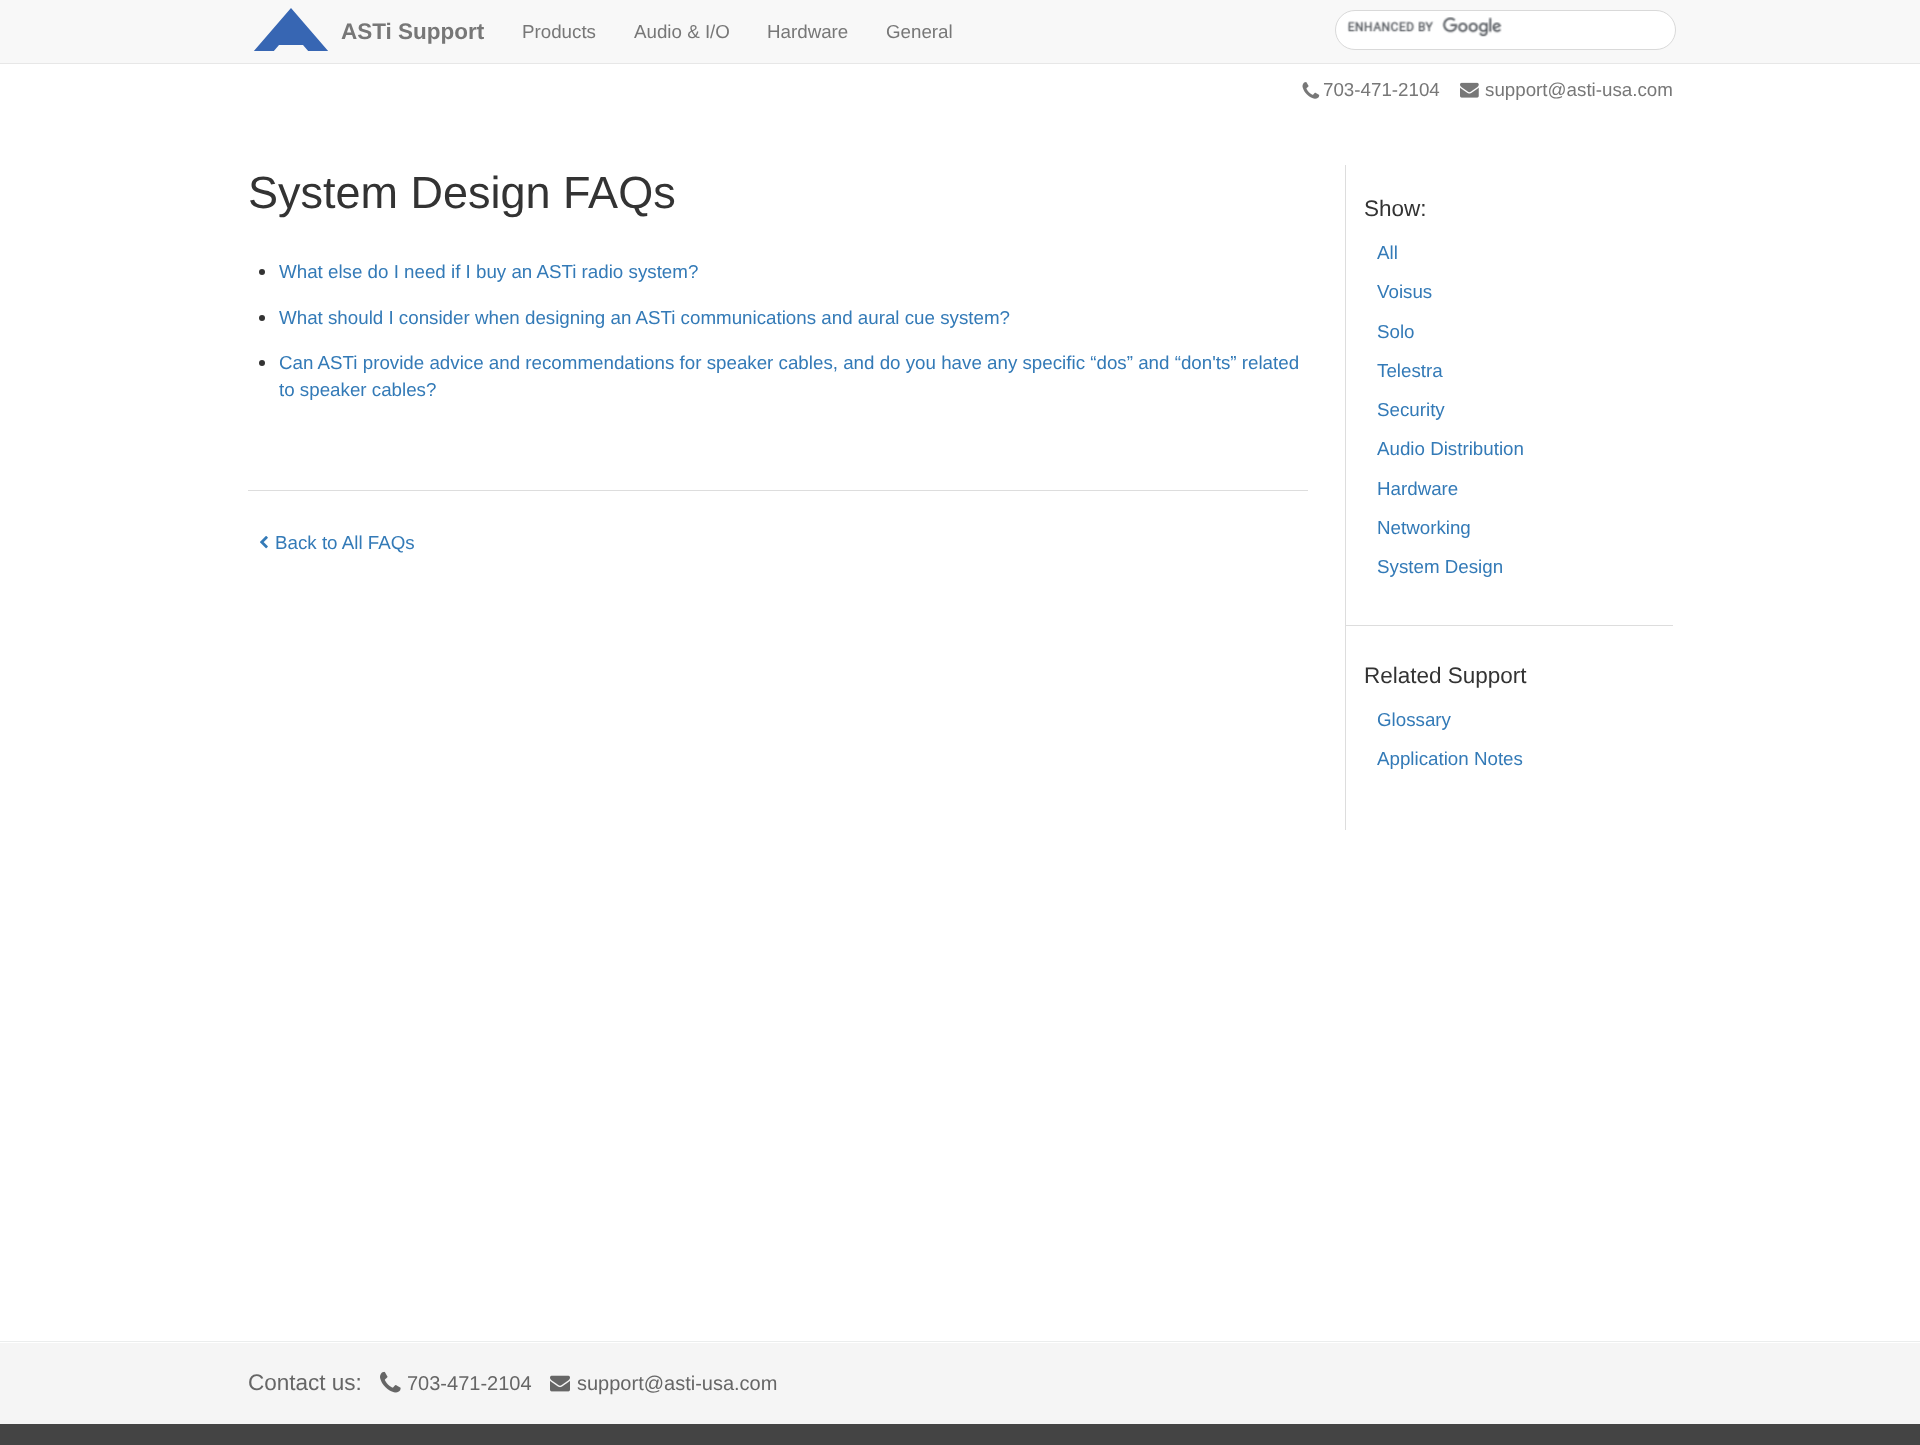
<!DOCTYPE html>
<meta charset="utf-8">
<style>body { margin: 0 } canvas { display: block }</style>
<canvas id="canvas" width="1920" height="1445"></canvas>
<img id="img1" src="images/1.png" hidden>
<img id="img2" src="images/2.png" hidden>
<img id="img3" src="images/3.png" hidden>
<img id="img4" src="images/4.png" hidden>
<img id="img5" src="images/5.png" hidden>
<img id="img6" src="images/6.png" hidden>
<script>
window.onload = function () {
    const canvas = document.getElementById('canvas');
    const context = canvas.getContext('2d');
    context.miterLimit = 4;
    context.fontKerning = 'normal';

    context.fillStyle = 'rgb(255, 255, 255)';
    context.fillRect(0, 0, 1920, 1445);
    context.fillStyle = 'rgb(248, 248, 248)';
    context.fillRect(0, 0, 1920, 63);
    context.fillStyle = 'rgb(231, 231, 231)';
    context.fillRect(0, 63, 1920, 1);
    context.save();
    context.beginPath();
    context.rect(248, 8, 87, 43);
    context.clip();
    context.fillStyle = 'rgb(55, 102, 179)';
    context.beginPath();
    context.moveTo(329, 52);
    context.lineTo(309, 52);
    context.lineTo(303, 45);
    context.lineTo(279, 45);
    context.lineTo(273, 52);
    context.lineTo(253, 52);
    context.lineTo(291, 8);
    context.closePath();
    context.fill();
    context.restore();
    context.fillStyle = 'rgb(255, 255, 255)';
    context.beginPath();
    context.roundRect(1335.5, 10.5, 340, 39, 19.5);
    context.fill();
    context.strokeStyle = 'rgb(217, 217, 217)';
    context.stroke();
    context.drawImage(document.getElementById('img1'), 1347, 17, 155, 20);
    context.drawImage(document.getElementById('img2'), 1302, 82, 18, 17);
    context.drawImage(document.getElementById('img3'), 1460, 82, 19, 16);
    context.fillStyle = 'rgb(51, 51, 51)';
    context.beginPath();
    context.arc(262, 272, 3, 0, 2 * Math.PI);
    context.fill();
    context.beginPath();
    context.arc(262, 318, 3, 0, 2 * Math.PI);
    context.fill();
    context.beginPath();
    context.arc(262, 363, 3, 0, 2 * Math.PI);
    context.fill();
    context.fillStyle = 'rgb(221, 221, 221)';
    context.fillRect(248, 490, 1060, 1);
    context.drawImage(document.getElementById('img4'), 260, 536, 8, 13);
    context.fillRect(1345, 165, 1, 665);
    context.fillRect(1346, 625, 327, 1);
    context.fillStyle = 'rgb(68, 68, 68)';
    context.fillRect(0, 1424, 1920, 21);
    context.fillStyle = 'rgb(235, 237, 237)';
    context.fillRect(0, 1341, 1920, 1);
    context.fillStyle = 'rgb(245, 245, 245)';
    context.fillRect(0, 1343, 1920, 81);
    context.drawImage(document.getElementById('img5'), 380, 1371, 21, 22);
    context.drawImage(document.getElementById('img6'), 550, 1375, 20, 17);
    context.font = 'bold 22.5px Liberation Sans';
    context.fillStyle = 'rgb(119, 119, 119)';
    context.fillText('ASTi Support', 341, 39);
    context.font = '18.75px Liberation Sans';
    context.fillText('Products', 522, 38);
    context.fillText('Audio & I/O', 634, 38);
    context.fillText('Hardware', 767, 38);
    context.fillText('General', 886, 38);
    context.fillText('703-471-2104', 1323, 96);
    context.fillText('support@asti-usa.com', 1485, 96);
    context.font = '45px Liberation Sans';
    context.fillStyle = 'rgb(51, 51, 51)';
    context.fillText('System Design FAQs', 248, 208);
    context.font = '18.75px Liberation Sans';
    context.fillStyle = 'rgb(51, 122, 183)';
    context.fillText('What else do I need if I buy an ASTi radio system?', 279, 278);
    context.fillText('What should I consider when designing an ASTi communications and aural cue system?', 279, 324);
    context.fillText('Can ASTi provide advice and recommendations for speaker cables, and do you have any specific “dos” and “don\'ts” related', 279, 369);
    context.fillText('to speaker cables?', 279, 396);
    context.fillText('Back to All FAQs', 275, 549);
    context.font = '22.5px Liberation Sans';
    context.fillStyle = 'rgb(51, 51, 51)';
    context.fillText('Show:', 1364, 216);
    context.font = '18.75px Liberation Sans';
    context.fillStyle = 'rgb(51, 122, 183)';
    context.fillText('All', 1377, 259);
    context.fillText('Voisus', 1377, 298);
    context.fillText('Solo', 1377, 338);
    context.fillText('Telestra', 1377, 377);
    context.fillText('Security', 1377, 416);
    context.fillText('Audio Distribution', 1377, 455);
    context.fillText('Hardware', 1377, 495);
    context.fillText('Networking', 1377, 534);
    context.fillText('System Design', 1377, 573);
    context.font = '22.5px Liberation Sans';
    context.fillStyle = 'rgb(51, 51, 51)';
    context.fillText('Related Support', 1364, 683);
    context.font = '18.75px Liberation Sans';
    context.fillStyle = 'rgb(51, 122, 183)';
    context.fillText('Glossary', 1377, 726);
    context.fillText('Application Notes', 1377, 765);
    context.font = '22.5px Liberation Sans';
    context.fillStyle = 'rgb(102, 102, 102)';
    context.fillText('Contact us:', 248, 1390);
    context.font = '20px Liberation Sans';
    context.fillText('703-471-2104', 407, 1390);
    context.fillText('support@asti-usa.com', 577, 1390);
};
</script>
